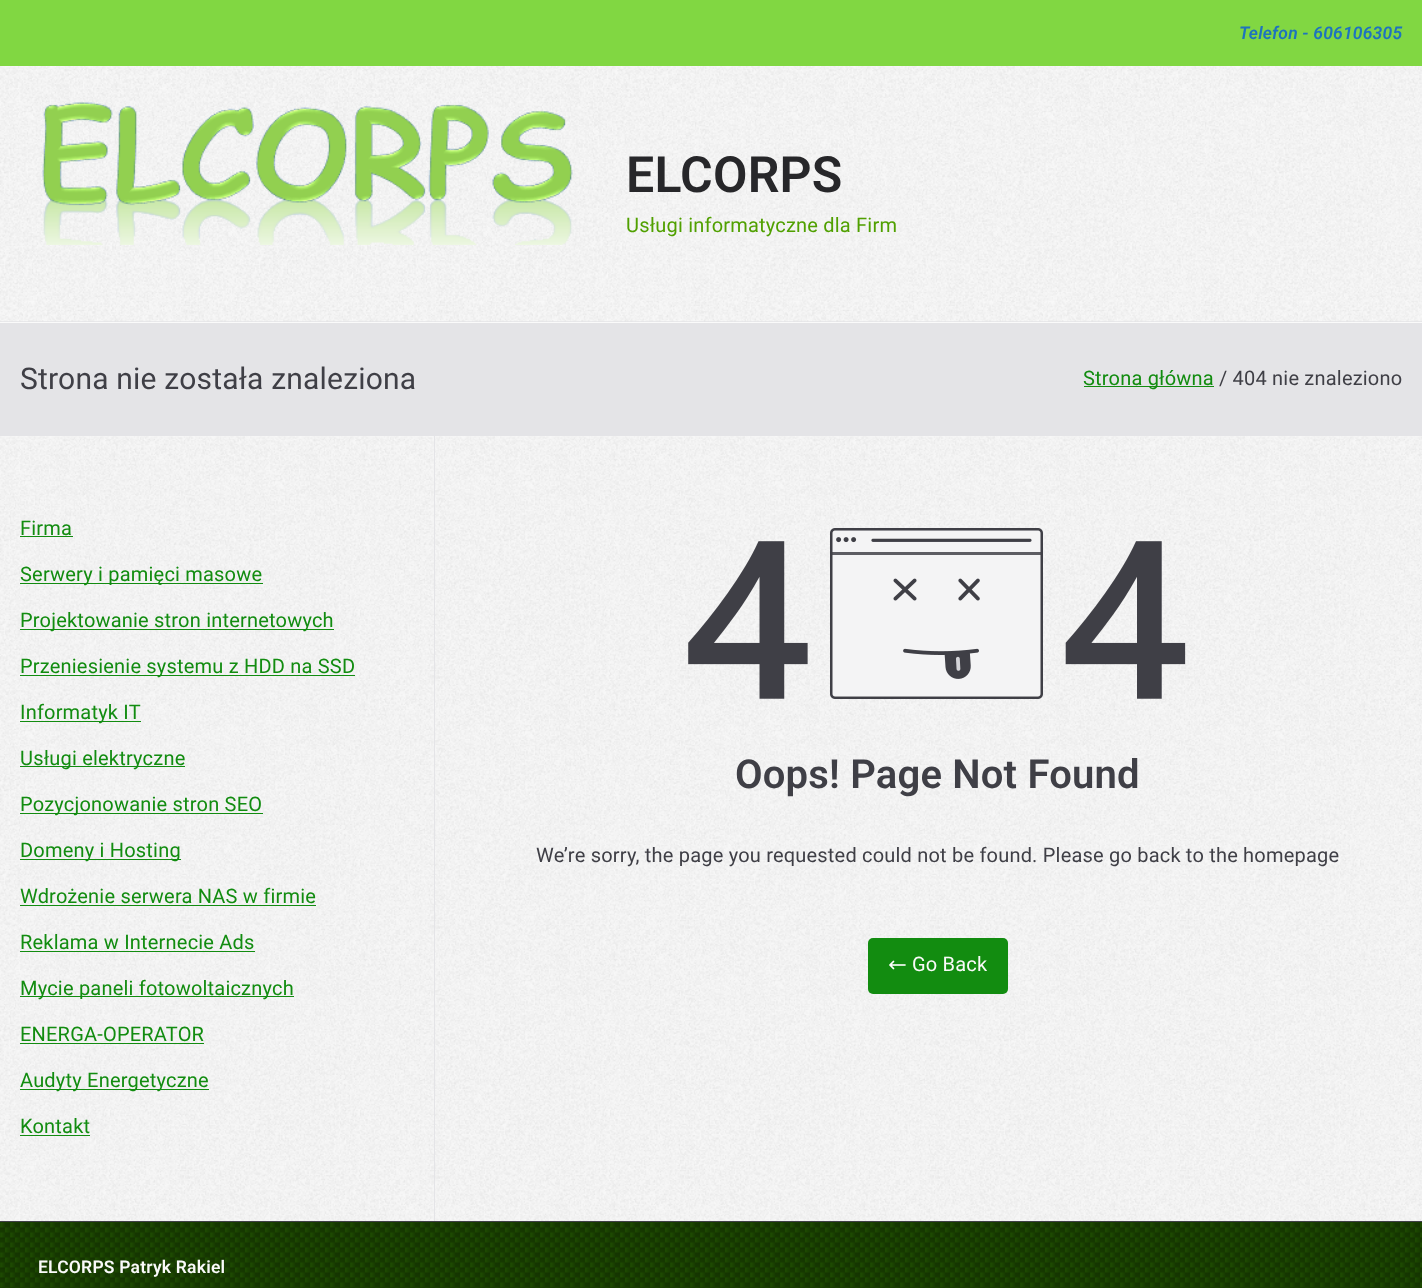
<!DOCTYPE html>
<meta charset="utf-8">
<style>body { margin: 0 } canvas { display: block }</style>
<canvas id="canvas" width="1422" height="1288"></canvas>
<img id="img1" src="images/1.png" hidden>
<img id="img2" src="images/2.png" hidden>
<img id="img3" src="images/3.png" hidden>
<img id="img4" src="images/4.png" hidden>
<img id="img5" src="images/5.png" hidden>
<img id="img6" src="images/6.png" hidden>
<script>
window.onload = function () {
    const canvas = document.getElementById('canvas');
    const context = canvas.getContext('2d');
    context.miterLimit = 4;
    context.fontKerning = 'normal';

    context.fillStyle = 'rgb(250, 250, 250)';
    context.fillRect(0, 0, 1422, 1288);
    context.fillStyle = 'rgb(228, 228, 231)';
    context.fillRect(0, 321, 1422, 1);
    context.fillStyle = 'rgb(129, 215, 66)';
    context.fillRect(0, 0, 1422, 66);
    context.drawImage(document.getElementById('img1'), 0, 66, 1422, 256);
    context.drawImage(document.getElementById('img2'), 42, 102, 531, 143);
    context.fillStyle = 'rgb(228, 228, 231)';
    context.fillRect(0, 323, 1422, 113);
    context.fillStyle = 'rgb(18, 140, 16)';
    context.fillRect(1084, 386, 130, 1);
    context.drawImage(document.getElementById('img3'), 0, 436, 1422, 785);
    context.fillStyle = 'rgb(228, 228, 231)';
    context.fillRect(434, 436, 1, 785);
    context.fillStyle = 'rgb(18, 140, 16)';
    context.fillRect(20, 536, 53, 1);
    context.fillRect(20, 583, 243, 1);
    context.fillRect(20, 629, 314, 1);
    context.fillRect(20, 675, 335, 1);
    context.fillRect(20, 721, 121, 1);
    context.fillRect(20, 766, 165, 1);
    context.fillRect(20, 813, 243, 1);
    context.fillRect(20, 859, 161, 1);
    context.fillRect(20, 905, 296, 1);
    context.fillRect(20, 951, 235, 1);
    context.fillRect(20, 996, 274, 1);
    context.fillRect(20, 1043, 184, 1);
    context.fillRect(20, 1089, 189, 1);
    context.fillRect(20, 1135, 70, 1);
    context.drawImage(document.getElementById('img4'), 688, 528, 498, 171);
    context.beginPath();
    context.roundRect(868, 938, 140, 56, 5);
    context.fill();
    context.drawImage(document.getElementById('img5'), 889, 960, 17, 10);
    context.drawImage(document.getElementById('img6'), 0, 1222, 1422, 66);
    context.fillStyle = 'rgb(63, 63, 70)';
    context.fillRect(0, 1221, 1422, 1);
    context.letterSpacing = '0.2px';
    context.font = 'italic 600 17.5px Roboto';
    context.fillStyle = 'rgb(30, 115, 190)';
    context.fillText('Telefon - 606106305', 1239, 39);
    context.font = '600 50px Roboto';
    context.fillStyle = 'rgb(39, 39, 42)';
    context.fillText('ELCORPS', 626, 192);
    context.font = '20px Roboto';
    context.fillStyle = 'rgb(80, 160, 0)';
    context.fillText('Usługi informatyczne dla Firm', 626, 232);
    context.font = '30px Roboto';
    context.fillStyle = 'rgb(63, 63, 70)';
    context.fillText('Strona nie została znaleziona', 20, 389);
    context.font = '20px Roboto';
    context.fillStyle = 'rgb(18, 140, 16)';
    context.fillText('Strona główna', 1083, 385);
    context.fillStyle = 'rgb(63, 63, 70)';
    context.fillText('/ 404 nie znaleziono', 1219, 385);
    context.fillStyle = 'rgb(18, 140, 16)';
    context.fillText('Firma', 20, 535);
    context.fillText('Serwery i pamięci masowe', 20, 581);
    context.fillText('Projektowanie stron internetowych', 20, 627);
    context.fillText('Przeniesienie systemu z HDD na SSD', 20, 673);
    context.fillText('Informatyk IT', 20, 719);
    context.fillText('Usługi elektryczne', 20, 765);
    context.fillText('Pozycjonowanie stron SEO', 20, 811);
    context.fillText('Domeny i Hosting', 20, 857);
    context.fillText('Wdrożenie serwera NAS w firmie', 20, 903);
    context.fillText('Reklama w Internecie Ads', 20, 949);
    context.fillText('Mycie paneli fotowoltaicznych', 20, 995);
    context.fillText('ENERGA-OPERATOR', 20, 1041);
    context.fillText('Audyty Energetyczne', 20, 1087);
    context.fillText('Kontakt', 20, 1133);
    context.font = '600 40px Roboto';
    context.fillStyle = 'rgb(63, 63, 70)';
    context.fillText('Oops! Page Not Found', 735, 788);
    context.font = '20px Roboto';
    context.fillText('We’re sorry, the page you requested could not be found. Please go back to the homepage', 536, 862);
    context.fillStyle = 'rgb(250, 250, 250)';
    context.fillText('Go Back', 912, 971);
    context.font = '600 17.5px Roboto';
    context.fillText('ELCORPS Patryk Rakiel', 38, 1273);
};
</script>
